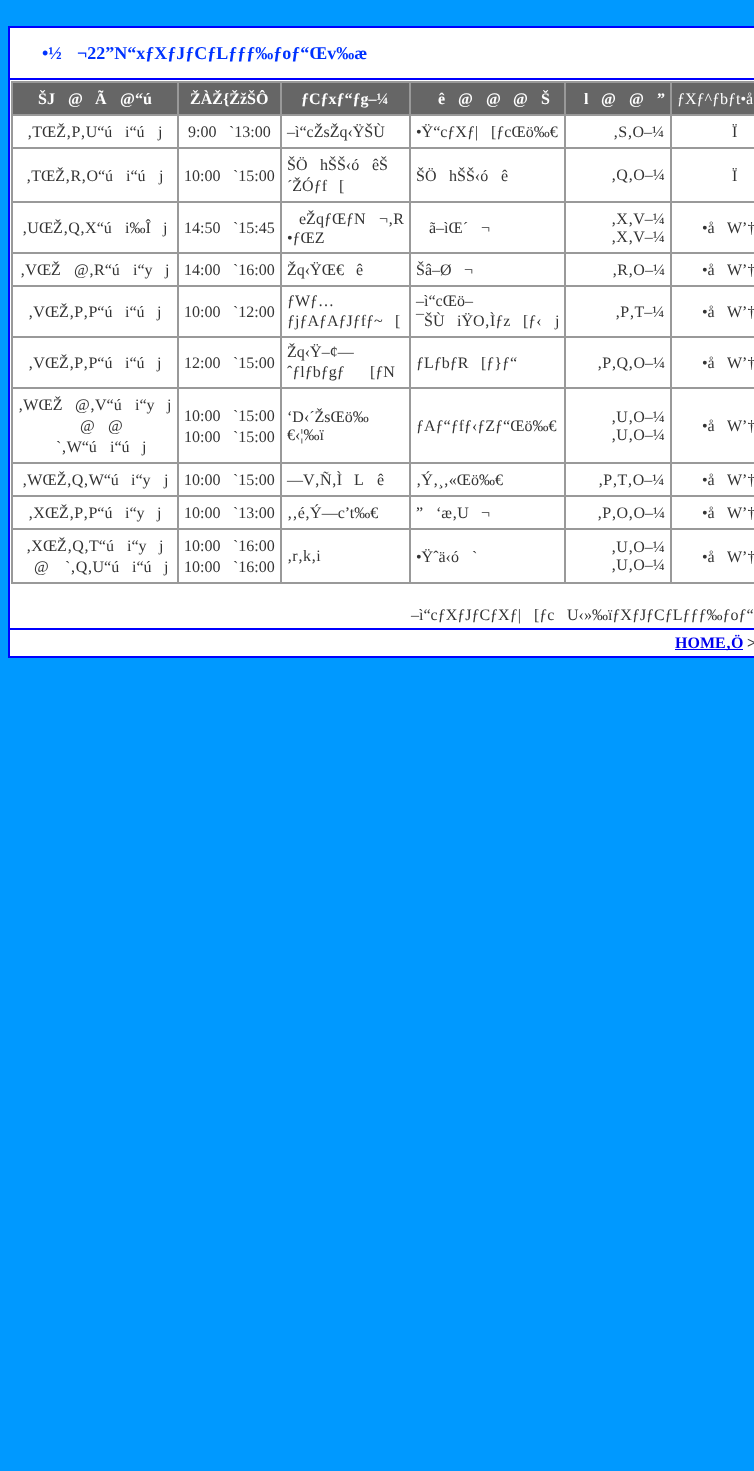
<!DOCTYPE html>
<meta charset="utf-8">
<style>body { margin: 0 } canvas { display: block }</style>
<canvas id="canvas" width="754" height="1471"></canvas>
<script>
window.onload = function () {
    const canvas = document.getElementById('canvas');
    const context = canvas.getContext('2d');
    context.miterLimit = 4;
    context.fontKerning = 'normal';

    context.fillStyle = 'rgb(0, 153, 255)';
    context.fillRect(0, 0, 754, 1471);
    context.fillStyle = 'rgb(255, 255, 255)';
    context.fillRect(10, 28, 744, 628);
    context.strokeStyle = 'rgb(0, 0, 255)';
    context.strokeRect(8.5, 26.5, 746, 631);
    context.strokeRect(9.5, 27.5, 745, 51);
    context.strokeRect(9.5, 79.5, 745, 549);
    context.strokeStyle = 'rgb(153, 153, 153)';
    context.strokeRect(11.5, 81.5, 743, 502);
    context.fillStyle = 'rgb(102, 102, 102)';
    context.fillRect(13, 83, 741, 31);
    context.strokeRect(12.5, 82.5, 165, 32);
    context.strokeRect(178.5, 82.5, 102, 32);
    context.strokeRect(281.5, 82.5, 128, 32);
    context.strokeRect(410.5, 82.5, 154, 32);
    context.strokeRect(565.5, 82.5, 105, 32);
    context.strokeRect(671.5, 82.5, 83, 32);
    context.strokeRect(12.5, 115.5, 165, 32);
    context.strokeRect(178.5, 115.5, 102, 32);
    context.strokeRect(281.5, 115.5, 128, 32);
    context.strokeRect(410.5, 115.5, 154, 32);
    context.strokeRect(565.5, 115.5, 105, 32);
    context.strokeRect(671.5, 115.5, 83, 32);
    context.strokeRect(12.5, 148.5, 165, 53);
    context.strokeRect(178.5, 148.5, 102, 53);
    context.strokeRect(281.5, 148.5, 128, 53);
    context.strokeRect(410.5, 148.5, 154, 53);
    context.strokeRect(565.5, 148.5, 105, 53);
    context.strokeRect(671.5, 148.5, 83, 53);
    context.strokeRect(12.5, 202.5, 165, 50);
    context.strokeRect(178.5, 202.5, 102, 50);
    context.strokeRect(281.5, 202.5, 128, 50);
    context.strokeRect(410.5, 202.5, 154, 50);
    context.strokeRect(565.5, 202.5, 105, 50);
    context.strokeRect(671.5, 202.5, 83, 50);
    context.strokeRect(12.5, 253.5, 165, 32);
    context.strokeRect(178.5, 253.5, 102, 32);
    context.strokeRect(281.5, 253.5, 128, 32);
    context.strokeRect(410.5, 253.5, 154, 32);
    context.strokeRect(565.5, 253.5, 105, 32);
    context.strokeRect(671.5, 253.5, 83, 32);
    context.strokeRect(12.5, 286.5, 165, 50);
    context.strokeRect(178.5, 286.5, 102, 50);
    context.strokeRect(281.5, 286.5, 128, 50);
    context.strokeRect(410.5, 286.5, 154, 50);
    context.strokeRect(565.5, 286.5, 105, 50);
    context.strokeRect(671.5, 286.5, 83, 50);
    context.strokeRect(12.5, 337.5, 165, 50);
    context.strokeRect(178.5, 337.5, 102, 50);
    context.strokeRect(281.5, 337.5, 128, 50);
    context.strokeRect(410.5, 337.5, 154, 50);
    context.strokeRect(565.5, 337.5, 105, 50);
    context.strokeRect(671.5, 337.5, 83, 50);
    context.strokeRect(12.5, 388.5, 165, 74);
    context.strokeRect(178.5, 388.5, 102, 74);
    context.strokeRect(281.5, 388.5, 128, 74);
    context.strokeRect(410.5, 388.5, 154, 74);
    context.strokeRect(565.5, 388.5, 105, 74);
    context.strokeRect(671.5, 388.5, 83, 74);
    context.strokeRect(12.5, 463.5, 165, 32);
    context.strokeRect(178.5, 463.5, 102, 32);
    context.strokeRect(281.5, 463.5, 128, 32);
    context.strokeRect(410.5, 463.5, 154, 32);
    context.strokeRect(565.5, 463.5, 105, 32);
    context.strokeRect(671.5, 463.5, 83, 32);
    context.strokeRect(12.5, 496.5, 165, 32);
    context.strokeRect(178.5, 496.5, 102, 32);
    context.strokeRect(281.5, 496.5, 128, 32);
    context.strokeRect(410.5, 496.5, 154, 32);
    context.strokeRect(565.5, 496.5, 105, 32);
    context.strokeRect(671.5, 496.5, 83, 32);
    context.strokeRect(12.5, 529.5, 165, 53);
    context.strokeRect(178.5, 529.5, 102, 53);
    context.strokeRect(281.5, 529.5, 128, 53);
    context.strokeRect(410.5, 529.5, 154, 53);
    context.strokeRect(565.5, 529.5, 105, 53);
    context.strokeRect(671.5, 529.5, 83, 53);
    context.strokeStyle = 'rgb(0, 0, 255)';
    context.strokeRect(9.5, 629.5, 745, 27);
    context.fillStyle = 'rgb(0, 0, 238)';
    context.fillRect(675, 649, 68, 1);
    context.font = 'bold 18px Liberation Serif';
    context.fillStyle = 'rgb(0, 51, 255)';
    context.fillText('•½', 42, 59);
    context.fillText('¬22”N“xƒXƒJƒCƒLƒƒƒ‰ƒoƒ“Œv‰æ', 77, 59);
    context.font = 'bold 16px Liberation Serif';
    context.fillStyle = 'rgb(255, 255, 255)';
    context.fillText('ŠJ', 38, 104);
    context.fillText('@', 68, 104);
    context.fillText('Ã', 95, 104);
    context.fillText('@“ú', 120, 104);
    context.fillText('ŽÀŽ{ŽžŠÔ', 190, 104);
    context.fillText('ƒCƒxƒ“ƒg–¼', 301, 104);
    context.fillText('ê', 438, 104);
    context.fillText('@', 458, 104);
    context.fillText('@', 486, 104);
    context.fillText('@', 513, 104);
    context.fillText('Š', 541, 104);
    context.fillText('l', 584, 104);
    context.fillText('@', 601, 104);
    context.fillText('@', 629, 104);
    context.fillText('”', 657, 104);
    context.font = '16px Liberation Serif';
    context.fillText('ƒXƒ^ƒbƒt•å', 677, 104);
    context.fillStyle = 'rgb(51, 51, 51)';
    context.fillText('‚TŒŽ‚P‚U“ú', 27, 137);
    context.fillText('i“ú', 125, 137);
    context.fillText('j', 158, 137);
    context.fillText('9:00', 188, 137);
    context.fillText('`13:00', 229, 137);
    context.fillText('–ì“cŽsŽq‹ŸŠÙ', 287, 137);
    context.fillText('•Ÿ“cƒXƒ|', 416, 137);
    context.fillText('[ƒcŒö‰€', 491, 137);
    context.fillText('‚S‚O–¼', 613, 137);
    context.fillText('Ï', 732, 137);
    context.fillText('‚TŒŽ‚R‚O“ú', 26, 181);
    context.fillText('i“ú', 126, 181);
    context.fillText('j', 159, 181);
    context.fillText('10:00', 184, 181);
    context.fillText('`15:00', 233, 181);
    context.fillText('ŠÖ', 287, 170);
    context.fillText('hŠŠ‹ó', 320, 170);
    context.fillText('êŠ', 372, 170);
    context.fillText('´ŽÓƒf', 287, 191);
    context.fillText('[', 339, 191);
    context.fillText('ŠÖ', 416, 181);
    context.fillText('hŠŠ‹ó', 449, 181);
    context.fillText('ê', 501, 181);
    context.fillText('‚Q‚O–¼', 611, 180);
    context.fillText('Ï', 732, 181);
    context.fillText('‚UŒŽ‚Q‚X“ú', 22, 233);
    context.fillText('i‰Î', 125, 233);
    context.fillText('j', 163, 233);
    context.fillText('14:50', 184, 233);
    context.fillText('`15:45', 233, 233);
    context.fillText('eŽqƒŒƒN', 299, 224);
    context.fillText('¬‚R', 379, 224);
    context.fillText('•ƒŒZ', 287, 243);
    context.fillText('ã–ìŒ´', 429, 233);
    context.fillText('¬', 481, 233);
    context.fillText('‚X‚V–¼', 611, 224);
    context.fillText('‚X‚V–¼', 611, 242);
    context.fillText('•å', 702, 233);
    context.fillText('W’†', 727, 233);
    context.fillText('‚VŒŽ', 20, 275);
    context.fillText('@‚R“ú', 74, 275);
    context.fillText('i“y', 133, 275);
    context.fillText('j', 165, 275);
    context.fillText('14:00', 184, 275);
    context.fillText('`16:00', 233, 275);
    context.fillText('Žq‹ŸŒ€', 287, 275);
    context.fillText('ê', 356, 275);
    context.fillText('Šâ–Ø', 416, 275);
    context.fillText('¬', 464, 275);
    context.fillText('‚R‚O–¼', 612, 275);
    context.fillText('•å', 702, 275);
    context.fillText('W’†', 727, 275);
    context.fillText('‚VŒŽ‚P‚P“ú', 28, 317);
    context.fillText('i“ú', 125, 317);
    context.fillText('j', 157, 317);
    context.fillText('10:00', 184, 317);
    context.fillText('`12:00', 233, 317);
    context.fillText('ƒWƒ…', 287, 306);
    context.fillText('ƒjƒAƒAƒJƒfƒ~', 287, 326);
    context.fillText('[', 395, 326);
    context.fillText('–ì“cŒö–', 416, 306);
    context.fillText('¯ŠÙ', 416, 326);
    context.fillText('iŸO‚Ìƒz', 457, 326);
    context.fillText('[ƒ‹', 523, 326);
    context.fillText('j', 555, 326);
    context.fillText('‚P‚T–¼', 615, 317);
    context.fillText('•å', 702, 317);
    context.fillText('W’†', 727, 317);
    context.fillText('‚VŒŽ‚P‚P“ú', 28, 368);
    context.fillText('i“ú', 125, 368);
    context.fillText('j', 157, 368);
    context.fillText('12:00', 184, 368);
    context.fillText('`15:00', 233, 368);
    context.fillText('Žq‹Ÿ–¢—', 287, 357);
    context.fillText('ˆƒlƒbƒgƒ', 287, 377);
    context.fillText('[ƒN', 370, 377);
    context.fillText('ƒLƒbƒR', 416, 368);
    context.fillText('[ƒ}ƒ“', 481, 368);
    context.fillText('‚P‚Q‚O–¼', 597, 368);
    context.fillText('•å', 702, 368);
    context.fillText('W’†', 727, 368);
    context.fillText('‚WŒŽ', 18, 410);
    context.fillText('@‚V“ú', 75, 410);
    context.fillText('i“y', 135, 410);
    context.fillText('j', 167, 410);
    context.fillText('@', 80, 431);
    context.fillText('@', 108, 431);
    context.fillText('`‚W“ú', 56, 452);
    context.fillText('i“ú', 110, 452);
    context.fillText('j', 142, 452);
    context.fillText('10:00', 184, 421);
    context.fillText('`15:00', 233, 421);
    context.fillText('10:00', 184, 442);
    context.fillText('`15:00', 233, 442);
    context.fillText('‘D‹´ŽsŒö‰', 287, 422);
    context.fillText('€‹¦‰ï', 287, 440);
    context.fillText('ƒAƒ“ƒfƒ‹ƒZƒ“Œö‰€', 416, 431);
    context.fillText('‚U‚O–¼', 611, 422);
    context.fillText('‚U‚O–¼', 611, 440);
    context.fillText('•å', 702, 431);
    context.fillText('W’†', 727, 431);
    context.fillText('‚WŒŽ‚Q‚W“ú', 22, 485);
    context.fillText('i“y', 131, 485);
    context.fillText('j', 164, 485);
    context.fillText('10:00', 184, 485);
    context.fillText('`15:00', 233, 485);
    context.fillText('—V‚Ñ‚Ì', 287, 485);
    context.fillText('L', 354, 485);
    context.fillText('ê', 377, 485);
    context.fillText('‚Ý‚¸‚«Œö‰€', 416, 485);
    context.fillText('‚P‚T‚O–¼', 598, 485);
    context.fillText('•å', 702, 485);
    context.fillText('W’†', 727, 485);
    context.fillText('‚XŒŽ‚P‚P“ú', 28, 518);
    context.fillText('i“y', 125, 518);
    context.fillText('j', 157, 518);
    context.fillText('10:00', 184, 518);
    context.fillText('`13:00', 233, 518);
    context.fillText('‚‚é‚Ý—c’t‰€', 287, 518);
    context.fillText('”', 416, 518);
    context.fillText('‘æ‚U', 436, 518);
    context.fillText('¬', 481, 518);
    context.fillText('‚P‚O‚O–¼', 597, 518);
    context.fillText('•å', 702, 518);
    context.fillText('W’†', 727, 518);
    context.fillText('‚XŒŽ‚Q‚T“ú', 26, 551);
    context.fillText('i“y', 127, 551);
    context.fillText('j', 159, 551);
    context.fillText('@', 34, 572);
    context.fillText('`‚Q‚U“ú', 65, 572);
    context.fillText('i“ú', 132, 572);
    context.fillText('j', 164, 572);
    context.fillText('10:00', 184, 551);
    context.fillText('`16:00', 233, 551);
    context.fillText('10:00', 184, 572);
    context.fillText('`16:00', 233, 572);
    context.fillText('‚r‚k‚i', 287, 561);
    context.fillText('•Ÿˆä‹ó', 416, 562);
    context.fillText('`', 472, 562);
    context.fillText('‚U‚O–¼', 611, 552);
    context.fillText('‚U‚O–¼', 611, 570);
    context.fillText('•å', 702, 562);
    context.fillText('W’†', 727, 562);
    context.fillText('–ì“cƒXƒJƒCƒXƒ|', 411, 620);
    context.fillText('[ƒc', 534, 620);
    context.fillText('U‹»‰ïƒXƒJƒCƒLƒƒƒ‰ƒoƒ“', 567, 620);
    context.font = 'bold 16px Liberation Serif';
    context.fillStyle = 'rgb(0, 0, 238)';
    context.fillText('HOME‚Ö', 675, 648);
    context.fillStyle = 'rgb(51, 51, 51)';
    context.fillText('>', 747, 648);
};
</script>
